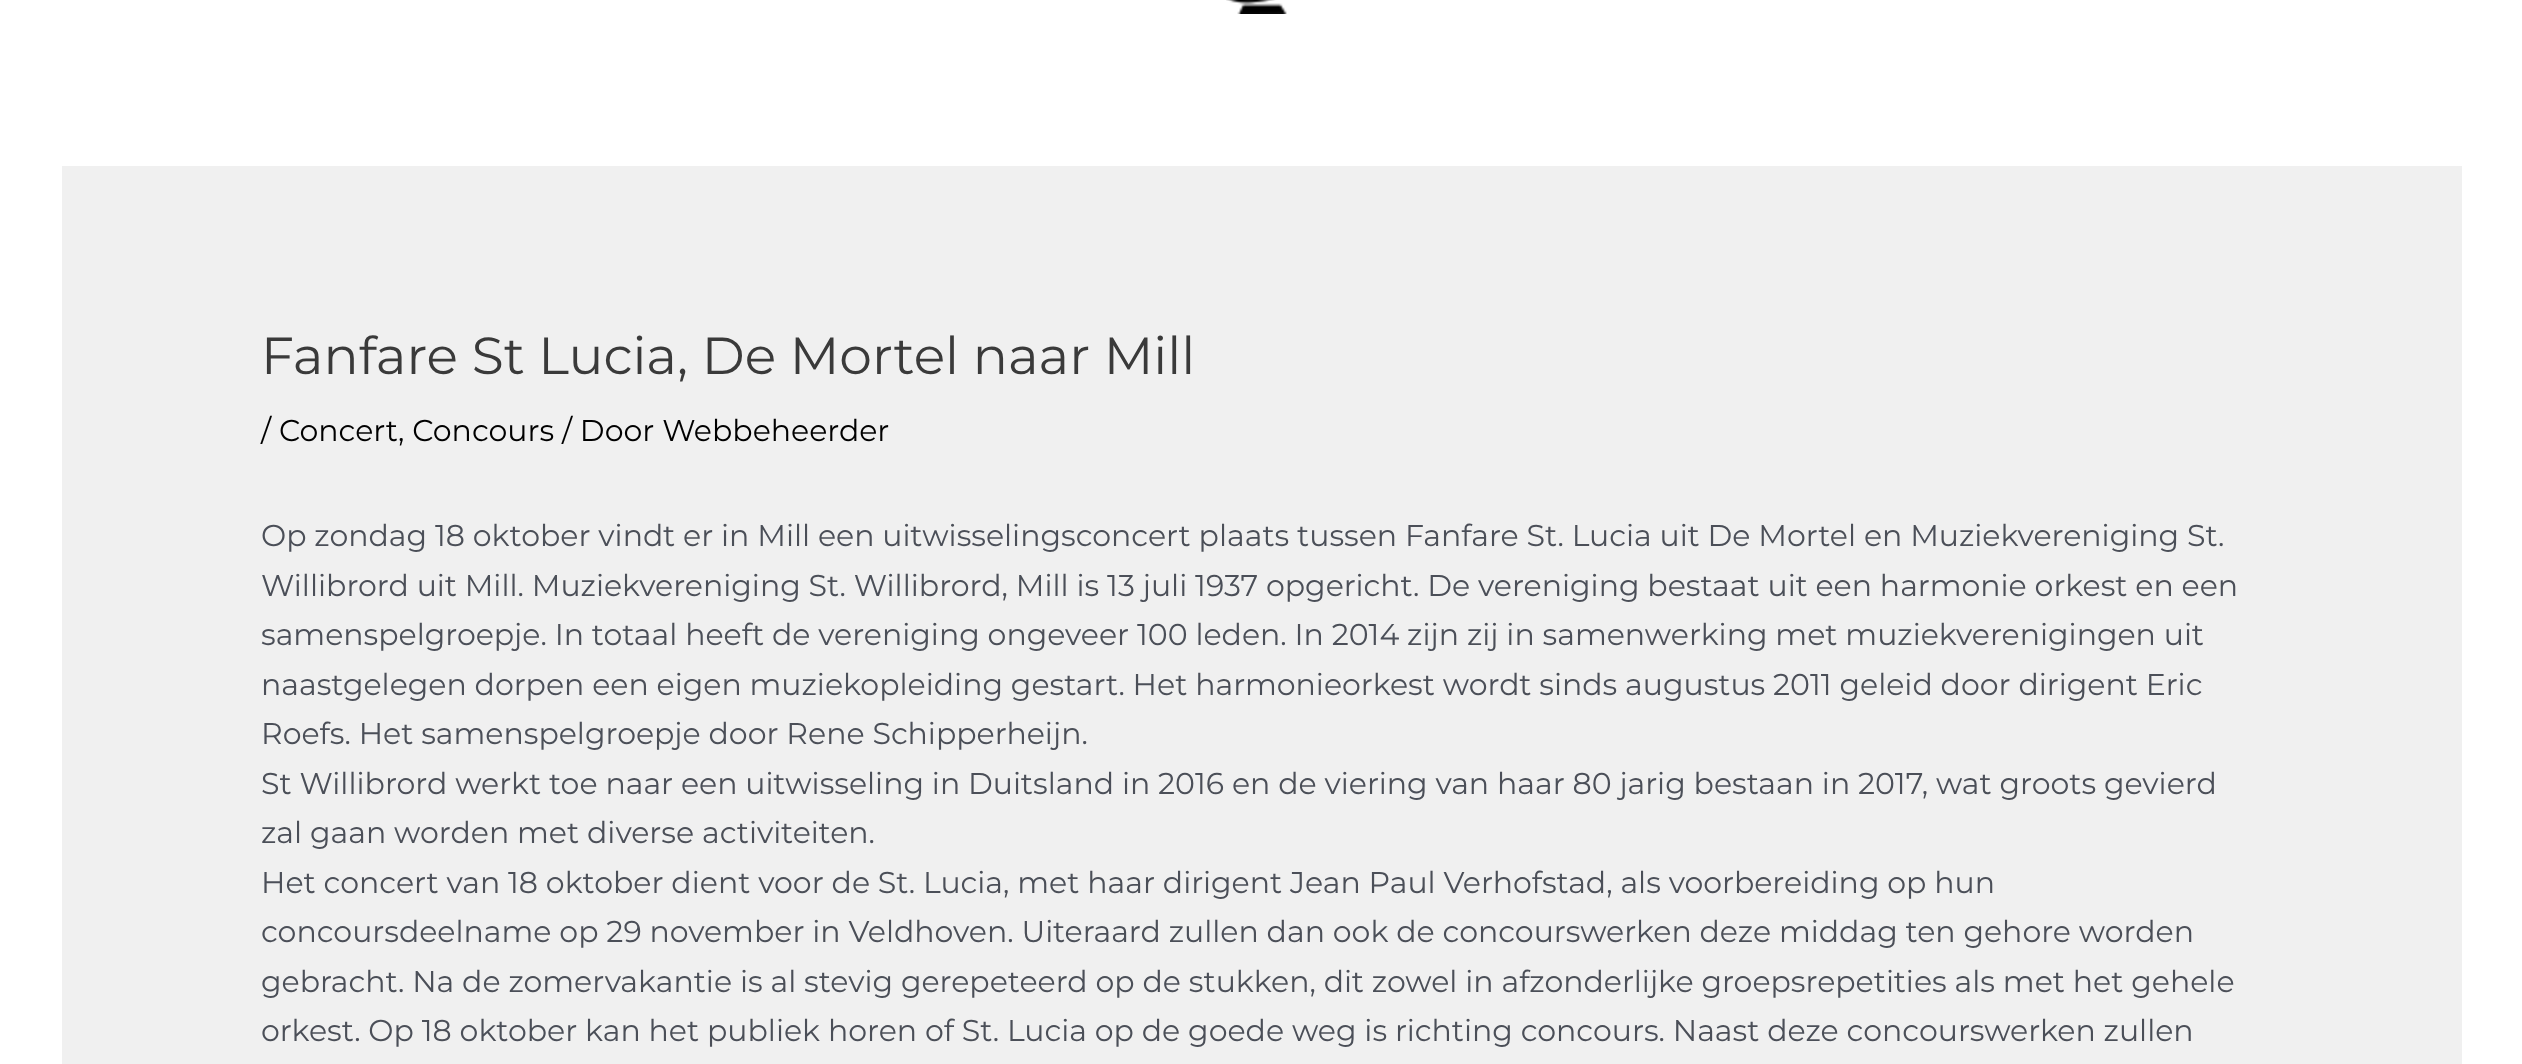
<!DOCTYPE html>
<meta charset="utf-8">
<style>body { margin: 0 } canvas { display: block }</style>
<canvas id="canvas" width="2522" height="1064"></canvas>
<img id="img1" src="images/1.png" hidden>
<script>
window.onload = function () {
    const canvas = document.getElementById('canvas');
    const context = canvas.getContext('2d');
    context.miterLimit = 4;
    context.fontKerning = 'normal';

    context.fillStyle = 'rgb(255, 255, 255)';
    context.fillRect(0, 0, 2522, 1064);
    context.drawImage(document.getElementById('img1'), 1226, 0, 61, 14);
    context.fillStyle = 'rgb(240, 240, 240)';
    context.fillRect(62, 166, 2400, 898);
    context.font = '52px Montserrat';
    context.fillStyle = 'rgb(58, 58, 58)';
    context.fillText('Fanfare St Lucia, De Mortel naar Mill', 261, 374);
    context.font = '30px Montserrat';
    context.fillStyle = 'rgb(0, 0, 0)';
    context.fillText('/ Concert', 261, 441);
    context.fillText(', Concours / Door Webbeheerder', 398, 441);
    context.fillStyle = 'rgb(75, 79, 88)';
    context.fillText('Op zondag 18 oktober vindt er in Mill een uitwisselingsconcert plaats tussen Fanfare St. Lucia uit De Mortel en Muziekvereniging St.', 261, 546);
    context.fillText('Willibrord uit Mill. Muziekvereniging St. Willibrord, Mill is 13 juli 1937 opgericht. De vereniging bestaat uit een harmonie orkest en een', 261, 596);
    context.fillText('samenspelgroepje. In totaal heeft de vereniging ongeveer 100 leden. In 2014 zijn zij in samenwerking met muziekverenigingen uit', 261, 645);
    context.fillText('naastgelegen dorpen een eigen muziekopleiding gestart. Het harmonieorkest wordt sinds augustus 2011 geleid door dirigent Eric', 261, 695);
    context.fillText('Roefs. Het samenspelgroepje door Rene Schipperheijn.', 261, 744);
    context.fillText('St Willibrord werkt toe naar een uitwisseling in Duitsland in 2016 en de viering van haar 80 jarig bestaan in 2017, wat groots gevierd', 261, 794);
    context.fillText('zal gaan worden met diverse activiteiten.', 261, 843);
    context.fillText('Het concert van 18 oktober dient voor de St. Lucia, met haar dirigent Jean Paul Verhofstad, als voorbereiding op hun', 261, 893);
    context.fillText('concoursdeelname op 29 november in Veldhoven. Uiteraard zullen dan ook de concourswerken deze middag ten gehore worden', 261, 942);
    context.fillText('gebracht. Na de zomervakantie is al stevig gerepeteerd op de stukken, dit zowel in afzonderlijke groepsrepetities als met het gehele', 261, 992);
    context.fillText('orkest. Op 18 oktober kan het publiek horen of St. Lucia op de goede weg is richting concours. Naast deze concourswerken zullen', 261, 1041);
};
</script>
